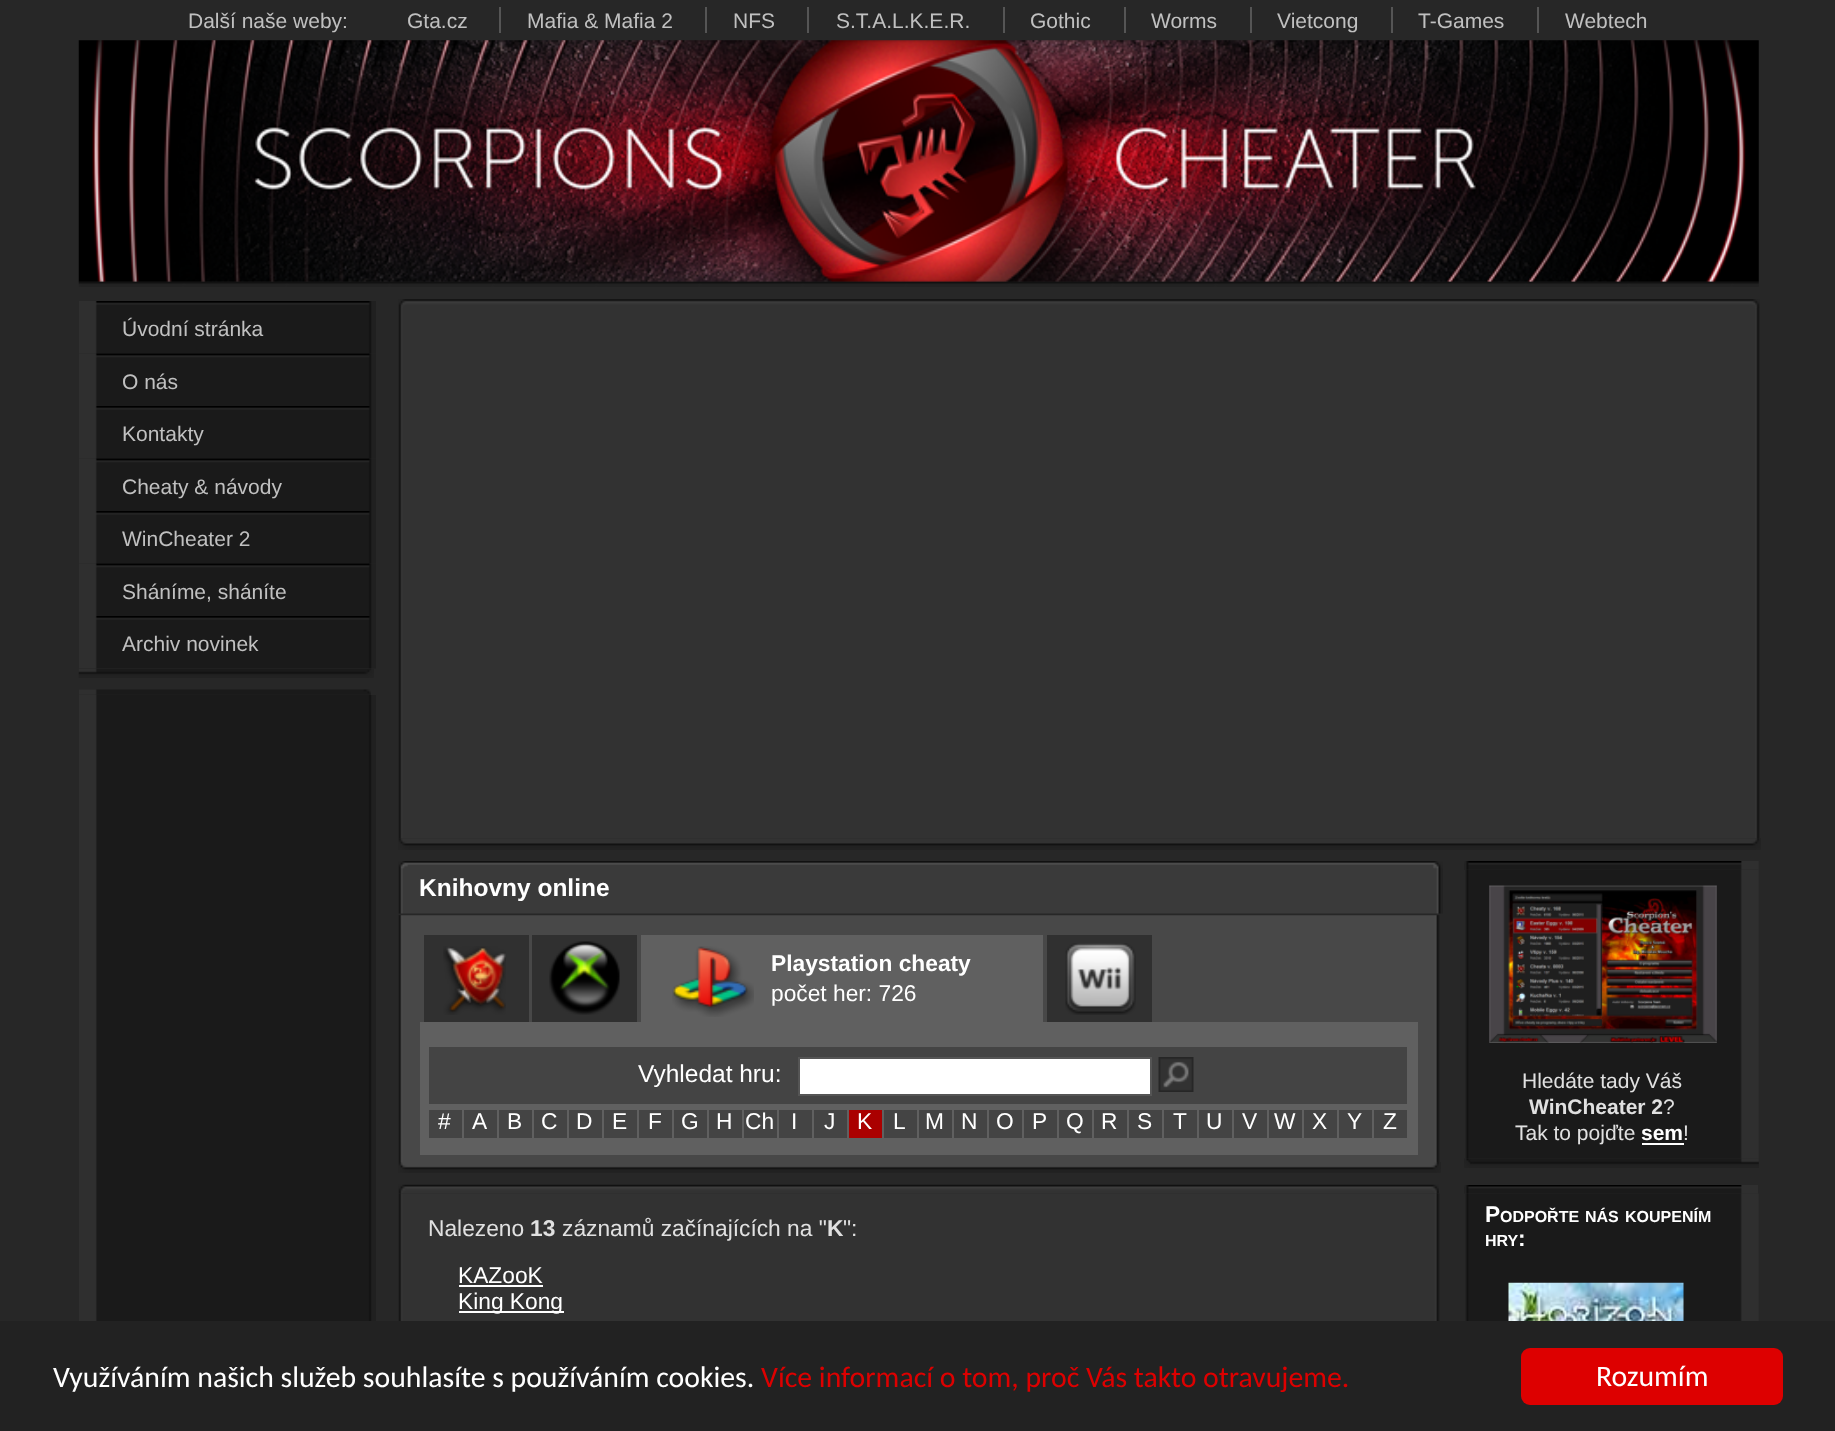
<!DOCTYPE html>
<meta charset="utf-8">
<style>body { margin: 0 } canvas { display: block }</style>
<canvas id="canvas" width="1835" height="1431"></canvas>
<img id="img1" src="images/1.png" hidden>
<img id="img2" src="images/2.png" hidden>
<img id="img3" src="images/3.png" hidden>
<img id="img4" src="images/4.png" hidden>
<img id="img5" src="images/5.png" hidden>
<img id="img6" src="images/6.png" hidden>
<img id="img7" src="images/7.png" hidden>
<img id="img8" src="images/8.png" hidden>
<img id="img9" src="images/9.png" hidden>
<img id="img10" src="images/10.png" hidden>
<img id="img11" src="images/11.png" hidden>
<img id="img12" src="images/12.png" hidden>
<img id="img13" src="images/13.png" hidden>
<img id="img14" src="images/14.png" hidden>
<img id="img15" src="images/15.png" hidden>
<img id="img16" src="images/16.png" hidden>
<img id="img17" src="images/17.png" hidden>
<img id="img18" src="images/18.png" hidden>
<img id="img19" src="images/19.png" hidden>
<img id="img20" src="images/22.png" hidden>
<img id="img21" src="images/20.png" hidden>
<img id="img22" src="images/21.png" hidden>
<img id="img23" src="images/23.png" hidden>
<img id="img24" src="images/24.png" hidden>
<img id="img25" src="images/25.png" hidden>
<img id="img26" src="images/26.png" hidden>
<img id="img27" src="images/27.png" hidden>
<script>
window.onload = function () {
    const canvas = document.getElementById('canvas');
    const context = canvas.getContext('2d');
    context.miterLimit = 4;
    context.fontKerning = 'normal';

    context.fillStyle = 'rgb(39, 39, 39)';
    context.fillRect(0, 0, 1835, 1431);
    context.fillStyle = 'rgb(85, 85, 85)';
    context.fillRect(499, 7, 2, 26);
    context.fillRect(705, 7, 2, 26);
    context.fillRect(807, 7, 2, 26);
    context.fillRect(1003, 7, 2, 26);
    context.fillRect(1124, 7, 2, 26);
    context.fillRect(1250, 7, 2, 26);
    context.fillRect(1391, 7, 2, 26);
    context.fillRect(1537, 7, 2, 26);
    context.drawImage(document.getElementById('img1'), 78, 40, 1681, 242);
    context.drawImage(document.getElementById('img2'), 78, 281, 1681, 6);
    context.drawImage(document.getElementById('img3'), 79, 301, 297, 53);
    context.drawImage(document.getElementById('img4'), 79, 353, 297, 53);
    context.drawImage(document.getElementById('img3'), 79, 406, 297, 53);
    context.drawImage(document.getElementById('img4'), 79, 458, 297, 53);
    context.drawImage(document.getElementById('img3'), 79, 511, 297, 53);
    context.drawImage(document.getElementById('img4'), 79, 563, 297, 53);
    context.drawImage(document.getElementById('img3'), 79, 616, 297, 53);
    context.drawImage(document.getElementById('img5'), 78, 669, 296, 9);
    context.drawImage(document.getElementById('img6'), 79, 689, 292, 6);
    context.drawImage(document.getElementById('img7'), 79, 695, 297, 626);
    context.drawImage(document.getElementById('img8'), 398, 299, 1362, 9);
    context.drawImage(document.getElementById('img9'), 398, 308, 1362, 531);
    context.drawImage(document.getElementById('img10'), 398, 838, 1363, 12);
    context.drawImage(document.getElementById('img11'), 398, 861, 1045, 53);
    context.drawImage(document.getElementById('img12'), 398, 915, 1042, 247);
    context.fillStyle = 'rgb(48, 48, 48)';
    context.fillRect(424, 935, 105, 87);
    context.drawImage(document.getElementById('img13'), 443, 946, 63, 69);
    context.fillRect(532, 935, 105, 87);
    context.drawImage(document.getElementById('img14'), 549, 941, 71, 74);
    context.fillStyle = 'rgb(96, 96, 96)';
    context.fillRect(641, 935, 402, 87);
    context.drawImage(document.getElementById('img15'), 672, 946, 82, 71);
    context.fillStyle = 'rgb(48, 48, 48)';
    context.fillRect(1047, 935, 105, 87);
    context.drawImage(document.getElementById('img16'), 1065, 943, 71, 72);
    context.fillStyle = 'rgb(96, 96, 96)';
    context.fillRect(420, 1022, 998, 133);
    context.fillStyle = 'rgb(68, 68, 68)';
    context.fillRect(429, 1047, 978, 57);
    context.fillStyle = 'rgb(255, 255, 255)';
    context.beginPath();
    context.rect(799, 1058, 352, 37);
    context.fill();
    context.strokeStyle = 'rgb(85, 85, 85)';
    context.lineWidth = 2;
    context.stroke();
    context.drawImage(document.getElementById('img17'), 1158, 1057, 36, 35);
    context.fillStyle = 'rgb(68, 68, 68)';
    context.fillRect(429, 1110, 33, 28);
    context.fillRect(464, 1110, 33, 28);
    context.fillRect(499, 1110, 33, 28);
    context.fillRect(534, 1110, 33, 28);
    context.fillRect(569, 1110, 33, 28);
    context.fillRect(604, 1110, 33, 28);
    context.fillRect(639, 1110, 33, 28);
    context.fillRect(674, 1110, 33, 28);
    context.fillRect(709, 1110, 33, 28);
    context.fillRect(744, 1110, 33, 28);
    context.fillRect(779, 1110, 33, 28);
    context.fillRect(814, 1110, 33, 28);
    context.fillStyle = 'rgb(170, 0, 0)';
    context.fillRect(849, 1110, 33, 28);
    context.fillStyle = 'rgb(68, 68, 68)';
    context.fillRect(884, 1110, 33, 28);
    context.fillRect(919, 1110, 33, 28);
    context.fillRect(954, 1110, 33, 28);
    context.fillRect(989, 1110, 33, 28);
    context.fillRect(1024, 1110, 33, 28);
    context.fillRect(1059, 1110, 33, 28);
    context.fillRect(1094, 1110, 33, 28);
    context.fillRect(1129, 1110, 33, 28);
    context.fillRect(1164, 1110, 33, 28);
    context.fillRect(1199, 1110, 33, 28);
    context.fillRect(1234, 1110, 33, 28);
    context.fillRect(1269, 1110, 33, 28);
    context.fillRect(1304, 1110, 33, 28);
    context.fillRect(1339, 1110, 33, 28);
    context.fillRect(1374, 1110, 33, 28);
    context.drawImage(document.getElementById('img18'), 398, 1162, 1043, 11);
    context.drawImage(document.getElementById('img19'), 1464, 861, 295, 9);
    context.drawImage(document.getElementById('img20'), 1464, 1158, 295, 10);
    context.drawImage(document.getElementById('img21'), 1465, 870, 294, 289);
    context.drawImage(document.getElementById('img22'), 1489, 885, 228, 158);
    context.fillStyle = 'rgb(255, 255, 255)';
    context.fillRect(1642, 1143, 42, 2);
    context.drawImage(document.getElementById('img23'), 398, 1184, 1041, 10);
    context.drawImage(document.getElementById('img24'), 398, 1193, 1042, 128);
    context.fillRect(459, 1285, 84, 2);
    context.fillRect(459, 1311, 105, 2);
    context.drawImage(document.getElementById('img25'), 1464, 1185, 294, 9);
    context.drawImage(document.getElementById('img26'), 1465, 1193, 294, 128);
    context.drawImage(document.getElementById('img27'), 1508, 1282, 176, 39);
    context.fillStyle = 'rgb(34, 34, 34)';
    context.fillRect(0, 1321, 1835, 110);
    context.fillStyle = 'rgb(221, 0, 0)';
    context.beginPath();
    context.roundRect(1521, 1348, 262, 57, 9);
    context.fill();
    context.font = '21px Liberation Sans';
    context.fillStyle = 'rgb(192, 192, 192)';
    context.fillText('Další naše weby:', 188, 28);
    context.fillText('Gta.cz', 407, 28);
    context.fillText('Mafia & Mafia 2', 527, 28);
    context.fillText('NFS', 733, 28);
    context.fillText('S.T.A.L.K.E.R.', 836, 28);
    context.fillText('Gothic', 1030, 28);
    context.fillText('Worms', 1151, 28);
    context.fillText('Vietcong', 1277, 28);
    context.fillText('T-Games', 1418, 28);
    context.fillText('Webtech', 1565, 28);
    context.fillText('Úvodní stránka', 122, 336);
    context.fillText('O nás', 122, 389);
    context.fillText('Kontakty', 122, 441);
    context.fillText('Cheaty & návody', 122, 494);
    context.fillText('WinCheater 2', 122, 546);
    context.fillText('Sháníme, sháníte', 122, 599);
    context.fillText('Archiv novinek', 122, 651);
    context.font = 'bold 24.5px Liberation Sans';
    context.fillStyle = 'rgb(255, 255, 255)';
    context.fillText('Knihovny online', 419, 896);
    context.font = 'bold 22.75px Liberation Sans';
    context.fillText('Playstation cheaty', 771, 971);
    context.font = '22.75px Liberation Sans';
    context.fillText('počet her: 726', 771, 1001);
    context.font = '24.5px Liberation Sans';
    context.fillText('Vyhledat hru:', 638, 1082);
    context.font = '22.75px Liberation Sans';
    context.fillText('#', 438, 1129);
    context.fillText('A', 472, 1129);
    context.fillText('B', 507, 1129);
    context.fillText('C', 541, 1129);
    context.fillText('D', 576, 1129);
    context.fillText('E', 612, 1129);
    context.fillText('F', 648, 1129);
    context.fillText('G', 681, 1129);
    context.fillText('H', 716, 1129);
    context.fillText('Ch', 745, 1129);
    context.fillText('I', 791, 1129);
    context.fillText('J', 824, 1129);
    context.fillText('K', 857, 1129);
    context.fillText('L', 893, 1129);
    context.fillText('M', 925, 1129);
    context.fillText('N', 961, 1129);
    context.fillText('O', 996, 1129);
    context.fillText('P', 1032, 1129);
    context.fillText('Q', 1066, 1129);
    context.fillText('R', 1101, 1129);
    context.fillText('S', 1137, 1129);
    context.fillText('T', 1173, 1129);
    context.fillText('U', 1206, 1129);
    context.fillText('V', 1242, 1129);
    context.fillText('W', 1274, 1129);
    context.fillText('X', 1312, 1129);
    context.fillText('Y', 1347, 1129);
    context.fillText('Z', 1383, 1129);
    context.font = '21px Liberation Sans';
    context.fillStyle = 'rgb(224, 224, 224)';
    context.fillText('Hledáte tady Váš', 1522, 1088);
    context.font = 'bold 21px Liberation Sans';
    context.fillText('WinCheater 2', 1529, 1114);
    context.font = '21px Liberation Sans';
    context.fillText('?', 1663, 1114);
    context.fillText('Tak to pojďte', 1515, 1140);
    context.font = 'bold 21px Liberation Sans';
    context.fillStyle = 'rgb(255, 255, 255)';
    context.fillText('sem', 1641, 1140);
    context.font = '21px Liberation Sans';
    context.fillStyle = 'rgb(224, 224, 224)';
    context.fillText('!', 1683, 1140);
    context.font = '22.75px Liberation Sans';
    context.fillText('Nalezeno', 428, 1236);
    context.font = 'bold 22.75px Liberation Sans';
    context.fillText('13', 530, 1236);
    context.font = '22.75px Liberation Sans';
    context.fillText('záznamů začínajících na "', 562, 1236);
    context.font = 'bold 22.75px Liberation Sans';
    context.fillText('K', 827, 1236);
    context.font = '22.75px Liberation Sans';
    context.fillText('":', 843, 1236);
    context.fillStyle = 'rgb(255, 255, 255)';
    context.fillText('KAZooK', 458, 1283);
    context.fillText('King Kong', 458, 1309);
    context.font = 'bold 22.75px Liberation Sans';
    context.fillText('P', 1485, 1222);
    context.font = 'bold 16px Liberation Sans';
    context.fillText('ODPOŘTE', 1500, 1222);
    context.fillText('NÁS', 1585, 1222);
    context.fillText('KOUPENÍM', 1625, 1222);
    context.fillText('HRY', 1485, 1246);
    context.font = 'bold 22.75px Liberation Sans';
    context.fillText(':', 1518, 1246);
    context.font = '29.75px Carlito';
    context.fillText('Využíváním našich služeb souhlasíte s používáním cookies.', 53, 1387);
    context.fillStyle = 'rgb(221, 0, 0)';
    context.fillText('Více informací o tom, proč Vás takto otravujeme.', 761, 1387);
    context.fillStyle = 'rgb(255, 255, 255)';
    context.fillText('Rozumím', 1596, 1386);
};
</script>
